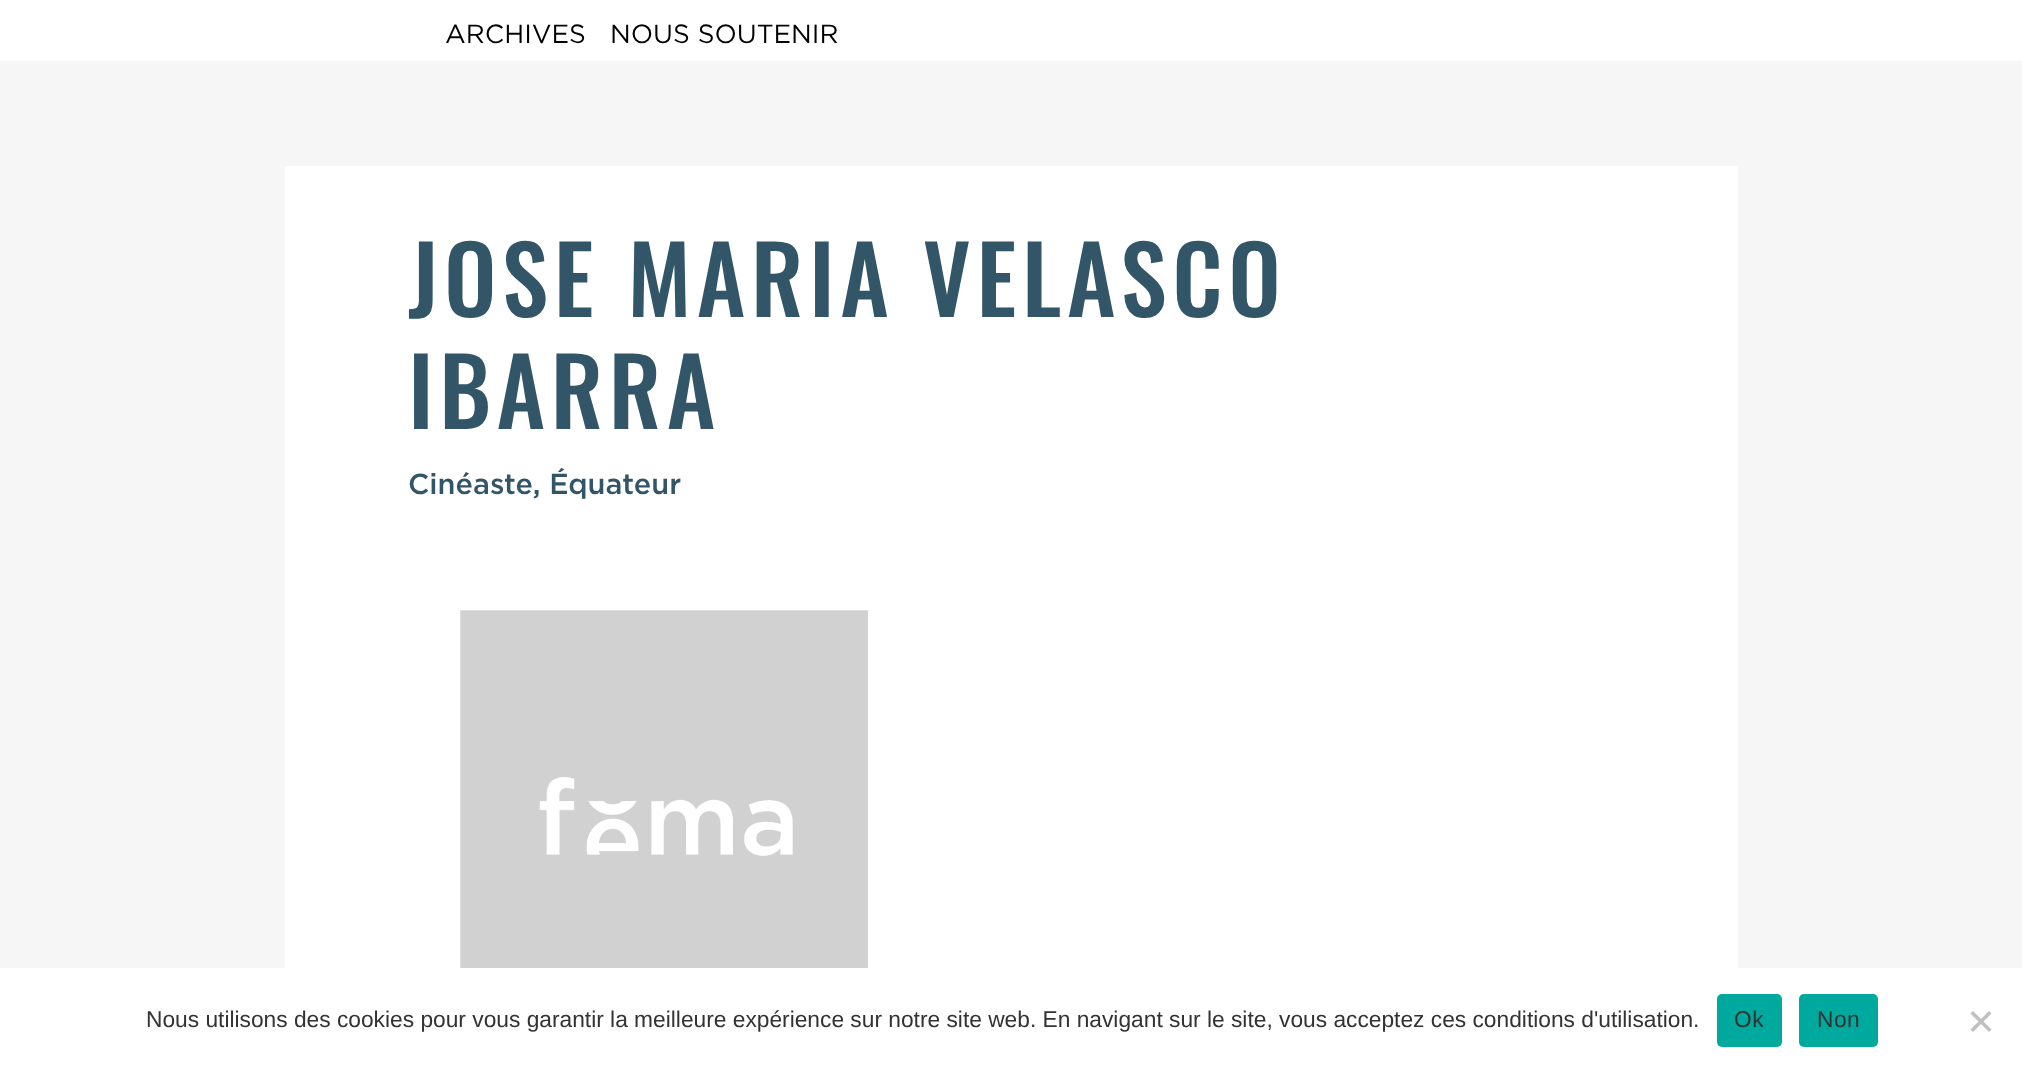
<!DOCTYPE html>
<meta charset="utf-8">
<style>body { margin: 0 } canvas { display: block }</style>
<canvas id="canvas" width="2022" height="1073"></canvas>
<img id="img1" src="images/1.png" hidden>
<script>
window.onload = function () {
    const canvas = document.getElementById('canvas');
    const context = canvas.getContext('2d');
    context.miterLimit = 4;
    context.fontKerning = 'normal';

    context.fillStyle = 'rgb(246, 246, 246)';
    context.fillRect(0, 0, 2022, 1073);
    context.fillStyle = 'rgb(255, 255, 255)';
    context.fillRect(0, 0, 2022, 61);
    context.fillRect(285, 166, 1453, 802);
    context.drawImage(document.getElementById('img1'), 460, 610, 408, 358);
    context.fillRect(0, 968, 2022, 105);
    context.fillStyle = 'rgb(0, 169, 157)';
    context.beginPath();
    context.roundRect(1717, 994, 65, 53, 5);
    context.fill();
    context.beginPath();
    context.roundRect(1799, 994, 79, 53, 5);
    context.fill();
    context.fillStyle = 'rgb(192, 192, 192)';
    context.beginPath();
    context.moveTo(1989, 1011);
    context.lineTo(1991.5, 1013.5);
    context.lineTo(1973, 1032);
    context.lineTo(1970.5, 1029.5);
    context.closePath();
    context.fill();
    context.beginPath();
    context.moveTo(1970.5, 1013.5);
    context.lineTo(1973, 1011);
    context.lineTo(1991.5, 1029.5);
    context.lineTo(1989, 1032);
    context.closePath();
    context.fill();
    context.font = '26.25px Gotham';
    context.fillStyle = 'rgb(0, 0, 0)';
    context.fillText('ARCHIVES', 445, 43);
    context.fillText('NOUS SOUTENIR', 610, 43);
    context.letterSpacing = '5.6px';
    context.font = '500 93.25px Oswald';
    context.fillStyle = 'rgb(50, 85, 104)';
    context.fillText('JOSE MARIA VELASCO', 408, 317);
    context.fillText('IBARRA', 408, 429);
    context.letterSpacing = '0px';
    context.font = '500 28.9px Gotham';
    context.fillText('Cinéaste, Équateur', 408, 494);
    context.font = '22.75px Liberation Sans';
    context.fillStyle = 'rgb(51, 51, 51)';
    context.fillText('Nous utilisons des cookies pour vous garantir la meilleure expérience sur notre site web. En navigant sur le site, vous acceptez ces conditions d\'utilisation.', 146, 1027);
    context.letterSpacing = '0.5px';
    context.fillText('Ok', 1734, 1027);
    context.fillText('Non', 1817, 1027);
};
</script>
